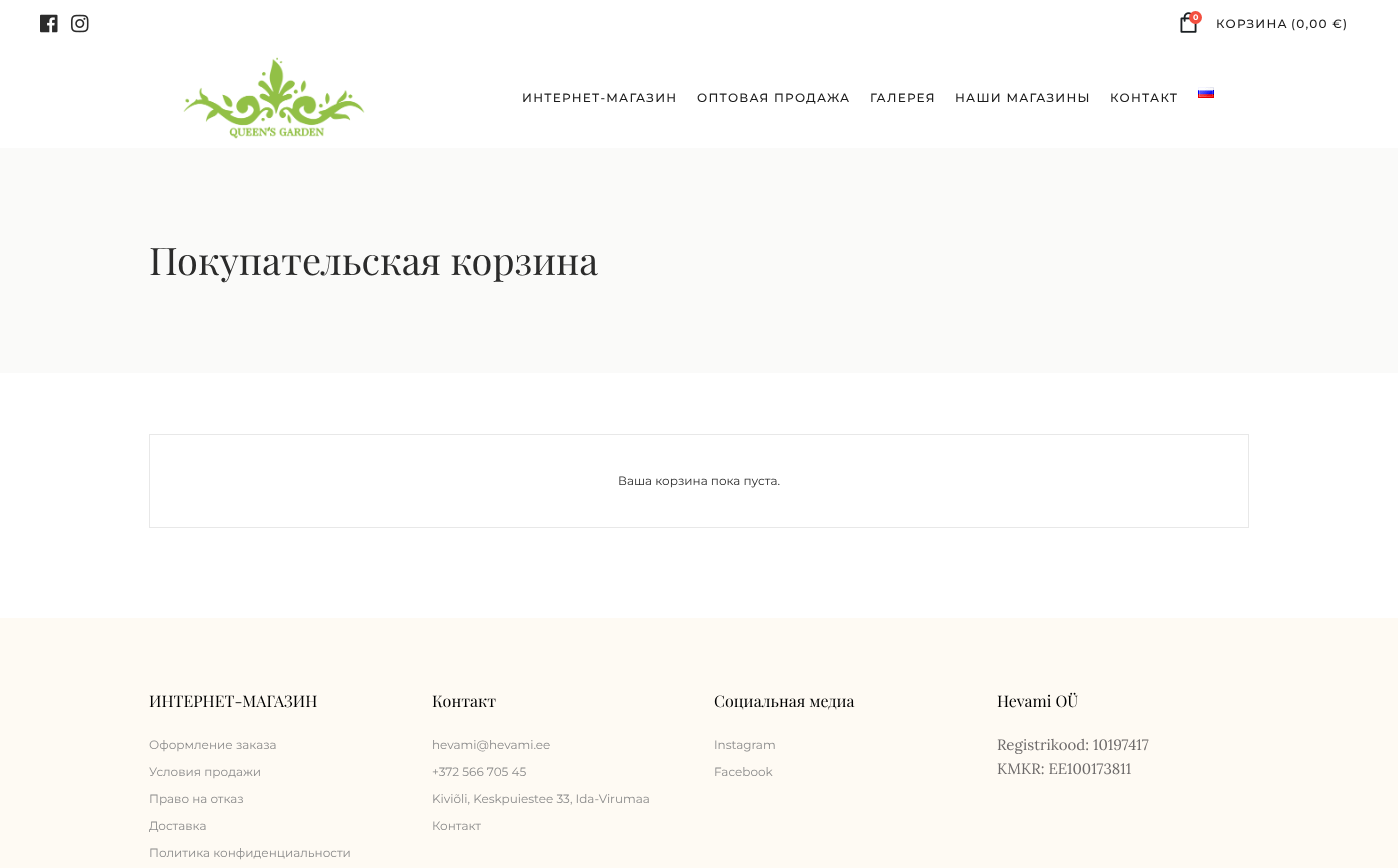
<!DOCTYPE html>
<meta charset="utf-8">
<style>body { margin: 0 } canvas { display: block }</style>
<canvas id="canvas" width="1398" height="868"></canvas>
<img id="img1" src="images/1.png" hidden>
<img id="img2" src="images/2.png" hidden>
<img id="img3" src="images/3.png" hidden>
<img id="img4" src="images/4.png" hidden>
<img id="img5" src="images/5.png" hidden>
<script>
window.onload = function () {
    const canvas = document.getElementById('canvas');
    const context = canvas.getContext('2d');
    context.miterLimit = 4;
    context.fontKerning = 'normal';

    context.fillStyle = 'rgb(255, 255, 255)';
    context.fillRect(0, 0, 1398, 868);
    context.drawImage(document.getElementById('img1'), 40, 14, 18, 19);
    context.drawImage(document.getElementById('img2'), 71, 14, 18, 19);
    context.drawImage(document.getElementById('img3'), 1180, 12, 17, 21);
    context.fillStyle = 'rgb(243, 79, 63)';
    context.beginPath();
    context.arc(1195.5, 17.5, 6.5, 0, 2 * Math.PI);
    context.fill();
    context.drawImage(document.getElementById('img4'), 183, 57, 182, 82);
    context.drawImage(document.getElementById('img5'), 1198, 87, 16, 11);
    context.fillStyle = 'rgb(250, 250, 249)';
    context.fillRect(0, 148, 1398, 225);
    context.strokeStyle = 'rgb(232, 232, 232)';
    context.strokeRect(149.5, 434.5, 1099, 93);
    context.fillStyle = 'rgb(254, 250, 243)';
    context.fillRect(0, 618, 1398, 250);
    context.font = 'bold 8px Montserrat';
    context.fillStyle = 'rgb(255, 255, 255)';
    context.fillText('0', 1193, 20);
    context.letterSpacing = '1.25px';
    context.font = '500 12px Montserrat';
    context.fillStyle = 'rgb(27, 27, 27)';
    context.fillText('КОРЗИНА', 1216, 28);
    context.fillText('(0,00 €)', 1291, 28);
    context.fillText('ИНТЕРНЕТ-МАГАЗИН', 522, 102);
    context.fillText('ОПТОВАЯ ПРОДАЖА', 697, 102);
    context.fillText('ГАЛЕРЕЯ', 870, 102);
    context.fillText('НАШИ МАГАЗИНЫ', 955, 102);
    context.fillText('КОНТАКТ', 1110, 102);
    context.letterSpacing = '0px';
    context.font = '38px Playfair Display';
    context.fillStyle = 'rgb(43, 43, 43)';
    context.fillText('Покупательская корзина', 149, 275);
    context.font = '12px Montserrat';
    context.fillText('Ваша корзина пока пуста.', 618, 485);
    context.font = '16px Playfair Display';
    context.fillStyle = 'rgb(0, 0, 0)';
    context.fillText('ИНТЕРНЕТ-МАГАЗИН', 149, 707);
    context.font = '12px Montserrat';
    context.fillStyle = 'rgb(139, 139, 139)';
    context.fillText('Оформление заказа', 149, 749);
    context.fillText('Условия продажи', 149, 776);
    context.fillText('Право на отказ', 149, 803);
    context.fillText('Доставка', 149, 830);
    context.fillText('Политика конфиденциальности', 149, 857);
    context.font = '16px Playfair Display';
    context.fillStyle = 'rgb(0, 0, 0)';
    context.fillText('Контакт', 432, 707);
    context.font = '12px Montserrat';
    context.fillStyle = 'rgb(139, 139, 139)';
    context.fillText('hevami@hevami.ee', 432, 749);
    context.fillText('+372 566 705 45', 432, 776);
    context.fillText('Kiviõli, Keskpuiestee 33, Ida-Virumaa', 432, 803);
    context.fillText('Контакт', 432, 830);
    context.font = '16px Playfair Display';
    context.fillStyle = 'rgb(0, 0, 0)';
    context.fillText('Социальная медиа', 714, 707);
    context.font = '12px Montserrat';
    context.fillStyle = 'rgb(139, 139, 139)';
    context.fillText('Instagram', 714, 749);
    context.fillText('Facebook', 714, 776);
    context.font = '16px Playfair Display';
    context.fillStyle = 'rgb(0, 0, 0)';
    context.fillText('Hevami OÜ', 997, 707);
    context.font = '15px Lora';
    context.fillStyle = 'rgb(109, 106, 106)';
    context.fillText('Registrikood: 10197417', 997, 750);
    context.fillText('KMKR: EE100173811', 997, 774);
};
</script>
